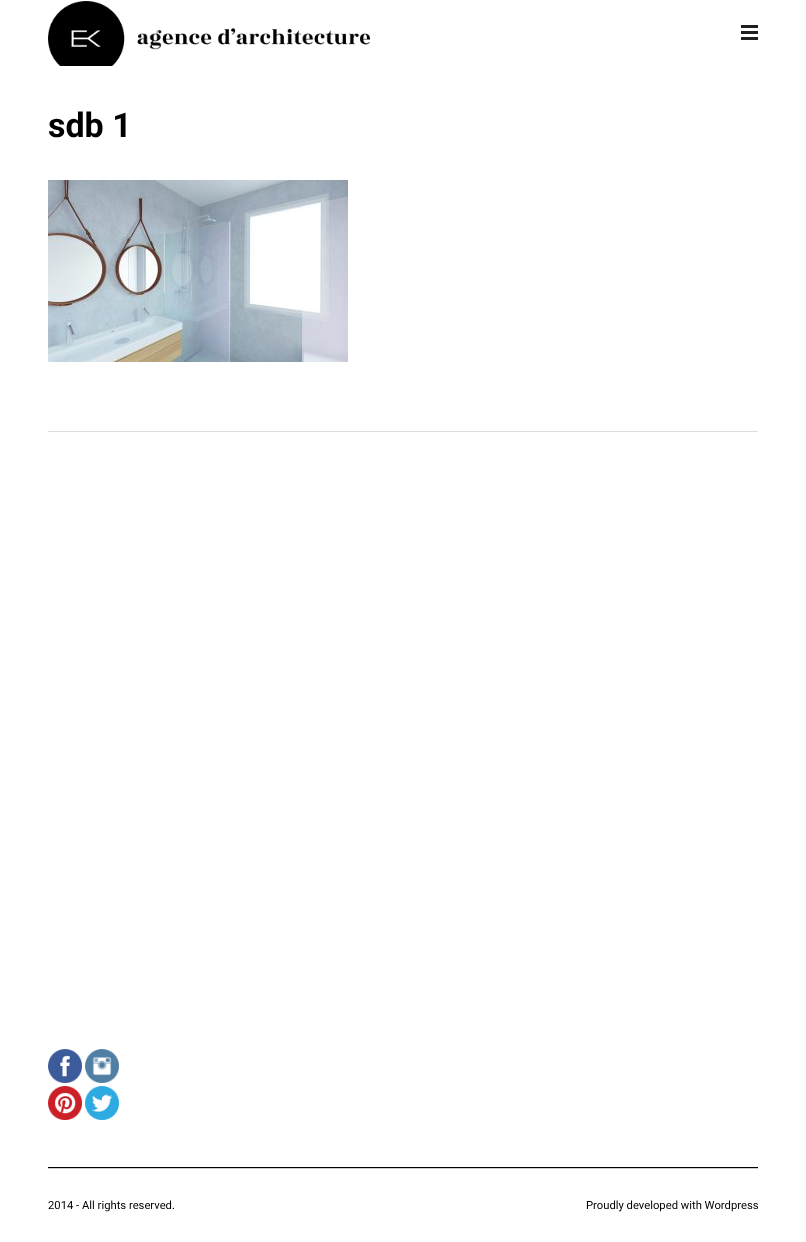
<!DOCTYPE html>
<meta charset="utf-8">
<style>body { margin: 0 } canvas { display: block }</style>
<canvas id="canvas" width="806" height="1242"></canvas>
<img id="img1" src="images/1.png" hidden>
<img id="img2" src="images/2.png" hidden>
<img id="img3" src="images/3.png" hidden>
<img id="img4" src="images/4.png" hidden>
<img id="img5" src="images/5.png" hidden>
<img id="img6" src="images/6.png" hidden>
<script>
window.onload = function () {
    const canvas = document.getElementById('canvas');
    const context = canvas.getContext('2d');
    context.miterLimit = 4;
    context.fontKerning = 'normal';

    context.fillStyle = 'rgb(255, 255, 255)';
    context.fillRect(0, 0, 806, 1242);
    context.drawImage(document.getElementById('img1'), 48, 1, 322, 65);
    context.fillStyle = 'rgb(31, 31, 31)';
    context.fillRect(741, 25, 17, 3);
    context.fillRect(741, 31, 17, 3);
    context.fillRect(741, 37, 17, 3);
    context.drawImage(document.getElementById('img2'), 48, 180, 300, 182);
    context.fillStyle = 'rgb(222, 222, 222)';
    context.fillRect(48, 431, 710, 1);
    context.drawImage(document.getElementById('img3'), 48, 1049, 34, 34);
    context.drawImage(document.getElementById('img4'), 85, 1049, 34, 34);
    context.drawImage(document.getElementById('img5'), 48, 1086, 34, 34);
    context.drawImage(document.getElementById('img6'), 85, 1086, 34, 34);
    context.fillStyle = 'rgb(0, 0, 0)';
    context.fillRect(48, 1167, 710, 1);
    context.fillStyle = 'rgb(204, 204, 204)';
    context.fillRect(48, 1168, 710, 1);
    context.font = 'bold 34px Roboto';
    context.fillStyle = 'rgb(0, 0, 0)';
    context.fillText('sdb 1', 48, 137);
    context.font = '11.25px Roboto';
    context.fillText('2014 - All rights reserved.', 48, 1209);
    context.fillText('Proudly developed with Wordpress', 586, 1209);
};
</script>
